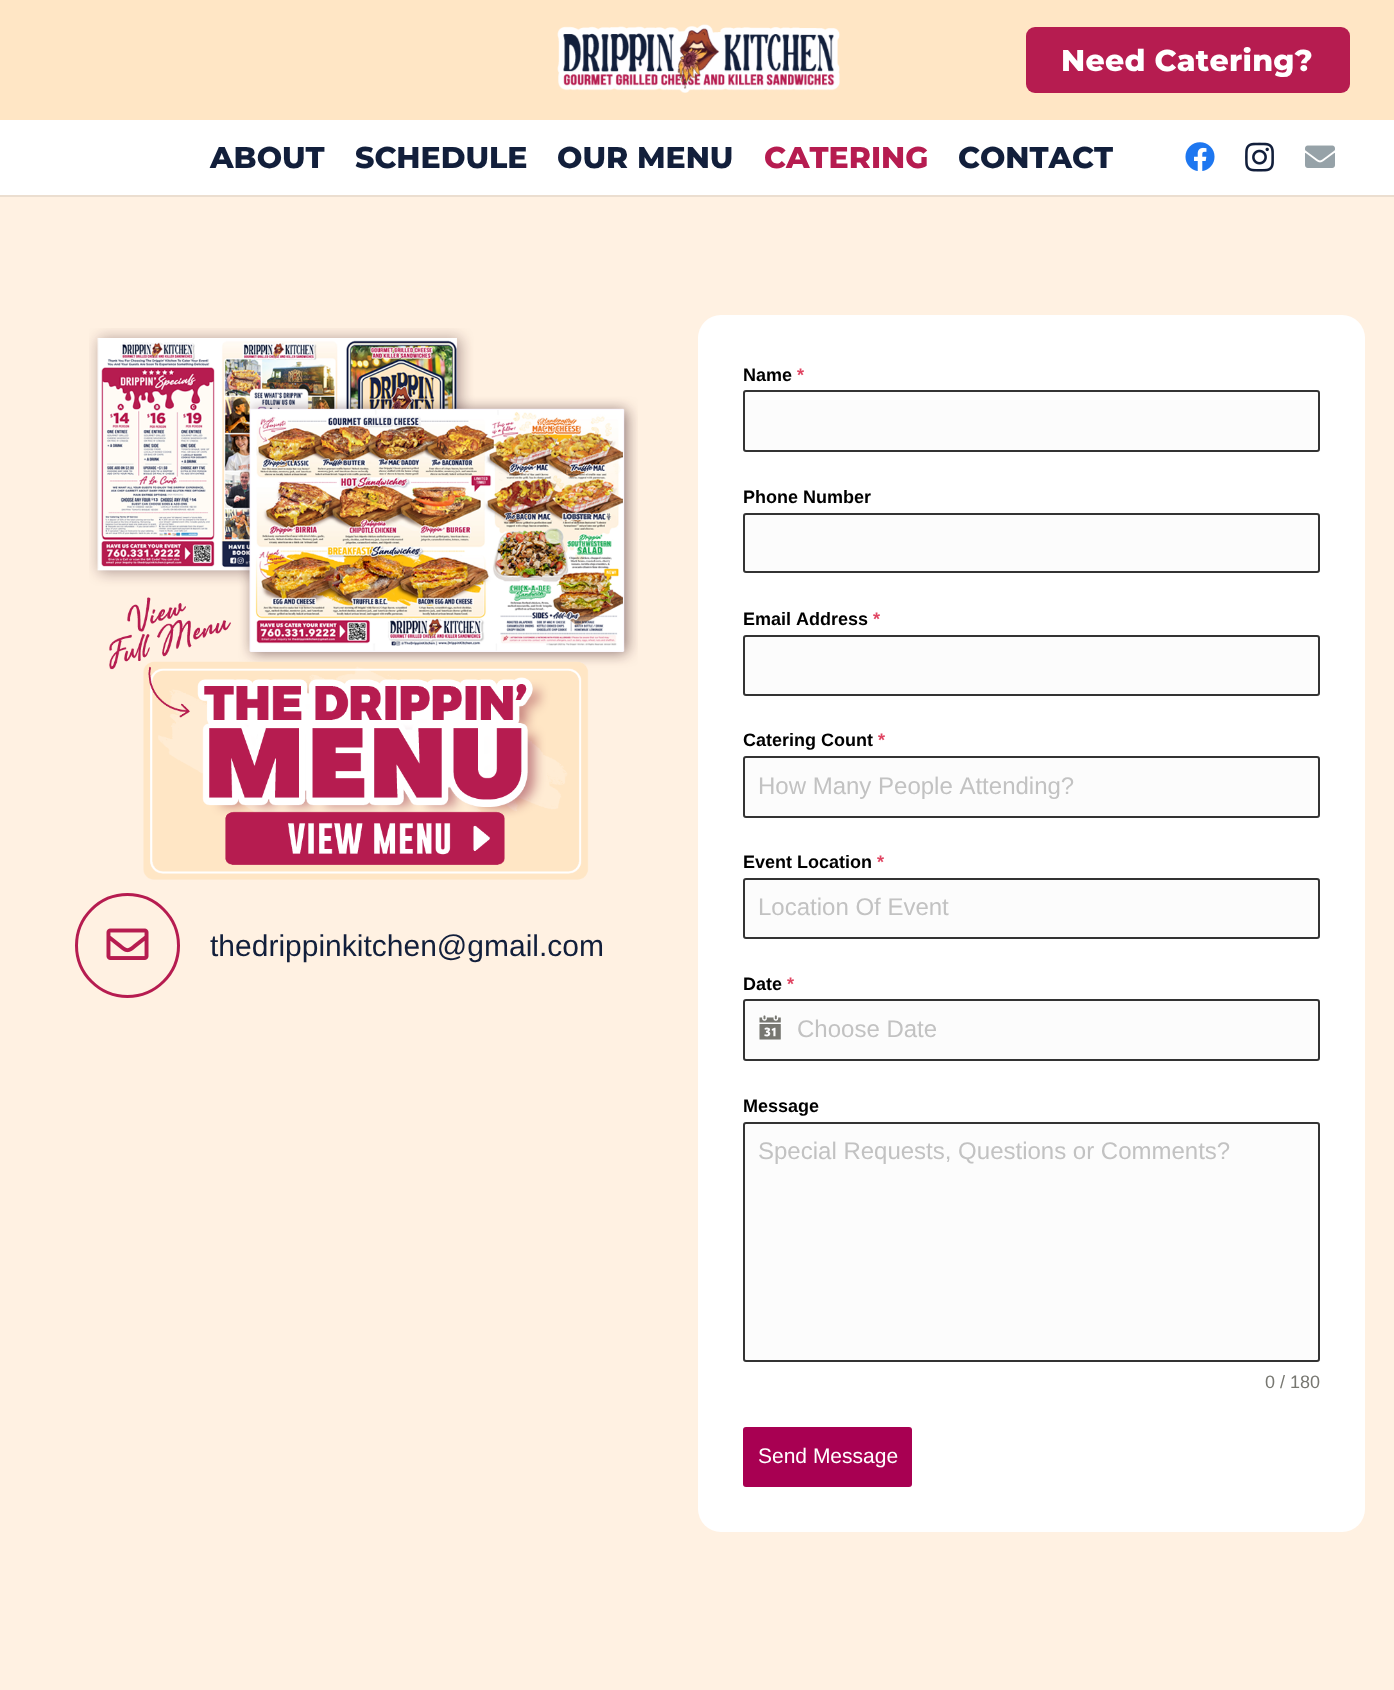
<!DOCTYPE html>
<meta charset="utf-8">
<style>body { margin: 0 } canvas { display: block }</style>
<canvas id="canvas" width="1394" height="1690"></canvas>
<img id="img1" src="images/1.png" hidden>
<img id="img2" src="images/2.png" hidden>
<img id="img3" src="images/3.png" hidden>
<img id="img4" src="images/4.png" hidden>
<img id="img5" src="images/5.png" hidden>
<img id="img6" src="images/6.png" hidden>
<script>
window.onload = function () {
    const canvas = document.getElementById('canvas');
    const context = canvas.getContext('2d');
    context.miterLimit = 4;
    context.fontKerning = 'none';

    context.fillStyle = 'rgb(255, 241, 226)';
    context.fillRect(0, 0, 1394, 1690);
    context.fillStyle = 'rgb(255, 230, 197)';
    context.fillRect(0, 0, 1394, 120);
    context.drawImage(document.getElementById('img1'), 557, 24, 283, 69);
    context.fillStyle = 'rgb(182, 28, 80)';
    context.beginPath();
    context.roundRect(1026, 27, 324, 66, 9);
    context.fill();
    context.fillStyle = 'rgb(235, 222, 208)';
    context.fillRect(0, 195, 1394, 2);
    context.fillStyle = 'rgb(255, 255, 255)';
    context.fillRect(0, 120, 1394, 75);
    context.drawImage(document.getElementById('img2'), 1185, 142, 30, 29);
    context.drawImage(document.getElementById('img3'), 1245, 142, 29, 30);
    context.drawImage(document.getElementById('img4'), 1305, 145, 30, 23);
    context.drawImage(document.getElementById('img5'), 89, 328, 549, 552);
    context.beginPath();
    context.arc(127.5, 945.5, 51, 0, 2 * Math.PI);
    context.strokeStyle = 'rgb(182, 28, 80)';
    context.lineWidth = 3;
    context.stroke();
    context.drawImage(document.getElementById('img6'), 106, 928, 43, 32);
    context.beginPath();
    context.roundRect(698, 315, 667, 1217, 23);
    context.fill();
    context.fillStyle = 'rgb(252, 252, 252)';
    context.beginPath();
    context.roundRect(744, 391, 575, 60, 2);
    context.fill();
    context.strokeStyle = 'rgb(51, 51, 51)';
    context.lineWidth = 2;
    context.stroke();
    context.beginPath();
    context.roundRect(744, 514, 575, 58, 2);
    context.fill();
    context.stroke();
    context.beginPath();
    context.roundRect(744, 636, 575, 59, 2);
    context.fill();
    context.stroke();
    context.beginPath();
    context.roundRect(744, 757, 575, 60, 2);
    context.fill();
    context.stroke();
    context.beginPath();
    context.roundRect(744, 879, 575, 59, 2);
    context.fill();
    context.stroke();
    context.beginPath();
    context.roundRect(744, 1000, 575, 60, 2);
    context.fill();
    context.stroke();
    context.beginPath();
    context.roundRect(744, 1123, 575, 238, 2);
    context.fill();
    context.stroke();
    context.fillStyle = 'rgb(168, 0, 82)';
    context.beginPath();
    context.roundRect(743, 1427, 169, 60, 3);
    context.fill();
    context.letterSpacing = '0.25px';
    context.font = '100 30px Montserrat';
    context.fillStyle = 'rgb(255, 255, 255)';
    context.fillText('Need Catering?', 1061, 71);
    context.letterSpacing = '0px';
    context.fillStyle = 'rgb(18, 31, 59)';
    context.fillText('ABOUT', 210, 168);
    context.fillText('SCHEDULE', 355, 168);
    context.fillText('OUR MENU', 557, 168);
    context.fillStyle = 'rgb(182, 28, 80)';
    context.fillText('CATERING', 764, 168);
    context.fillStyle = 'rgb(18, 31, 59)';
    context.fillText('CONTACT', 958, 168);
    context.font = '30px Liberation Sans';
    context.fillText('thedrippinkitchen@gmail.com', 210, 956);
    context.font = 'bold 18px Liberation Sans';
    context.fillStyle = 'rgb(0, 0, 0)';
    context.fillText('Name', 743, 381);
    context.fillStyle = 'rgb(224, 69, 98)';
    context.fillText('*', 797, 381);
    context.fillStyle = 'rgb(0, 0, 0)';
    context.fillText('Phone Number', 743, 503);
    context.fillText('Email Address', 743, 625);
    context.fillStyle = 'rgb(224, 69, 98)';
    context.fillText('*', 873, 625);
    context.fillStyle = 'rgb(0, 0, 0)';
    context.fillText('Catering Count', 743, 746);
    context.fillStyle = 'rgb(224, 69, 98)';
    context.fillText('*', 878, 746);
    context.font = '24px Liberation Sans';
    context.fillStyle = 'rgb(194, 194, 194)';
    context.fillText('How Many People Attending?', 758, 794);
    context.font = 'bold 18px Liberation Sans';
    context.fillStyle = 'rgb(0, 0, 0)';
    context.fillText('Event Location', 743, 868);
    context.fillStyle = 'rgb(224, 69, 98)';
    context.fillText('*', 877, 868);
    context.font = '24px Liberation Sans';
    context.fillStyle = 'rgb(194, 194, 194)';
    context.fillText('Location Of Event', 758, 915);
    context.font = 'bold 18px Liberation Sans';
    context.fillStyle = 'rgb(0, 0, 0)';
    context.fillText('Date', 743, 990);
    context.fillStyle = 'rgb(224, 69, 98)';
    context.fillText('*', 787, 990);
    context.font = '24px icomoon';
    context.fillStyle = 'rgb(119, 119, 113)';
    context.fillText('📅', 758, 1038);
    context.font = '24px Liberation Sans';
    context.fillStyle = 'rgb(194, 194, 194)';
    context.fillText('Choose Date', 797, 1037);
    context.font = 'bold 18px Liberation Sans';
    context.fillStyle = 'rgb(0, 0, 0)';
    context.fillText('Message', 743, 1112);
    context.font = '24px Liberation Sans';
    context.fillStyle = 'rgb(194, 194, 194)';
    context.fillText('Special Requests, Questions or Comments?', 758, 1159);
    context.font = '18px Liberation Sans';
    context.fillStyle = 'rgb(119, 119, 113)';
    context.fillText('0 / 180', 1265, 1388);
    context.font = '21px Liberation Sans';
    context.fillStyle = 'rgb(255, 255, 255)';
    context.fillText('Send Message', 758, 1463);
};
</script>
